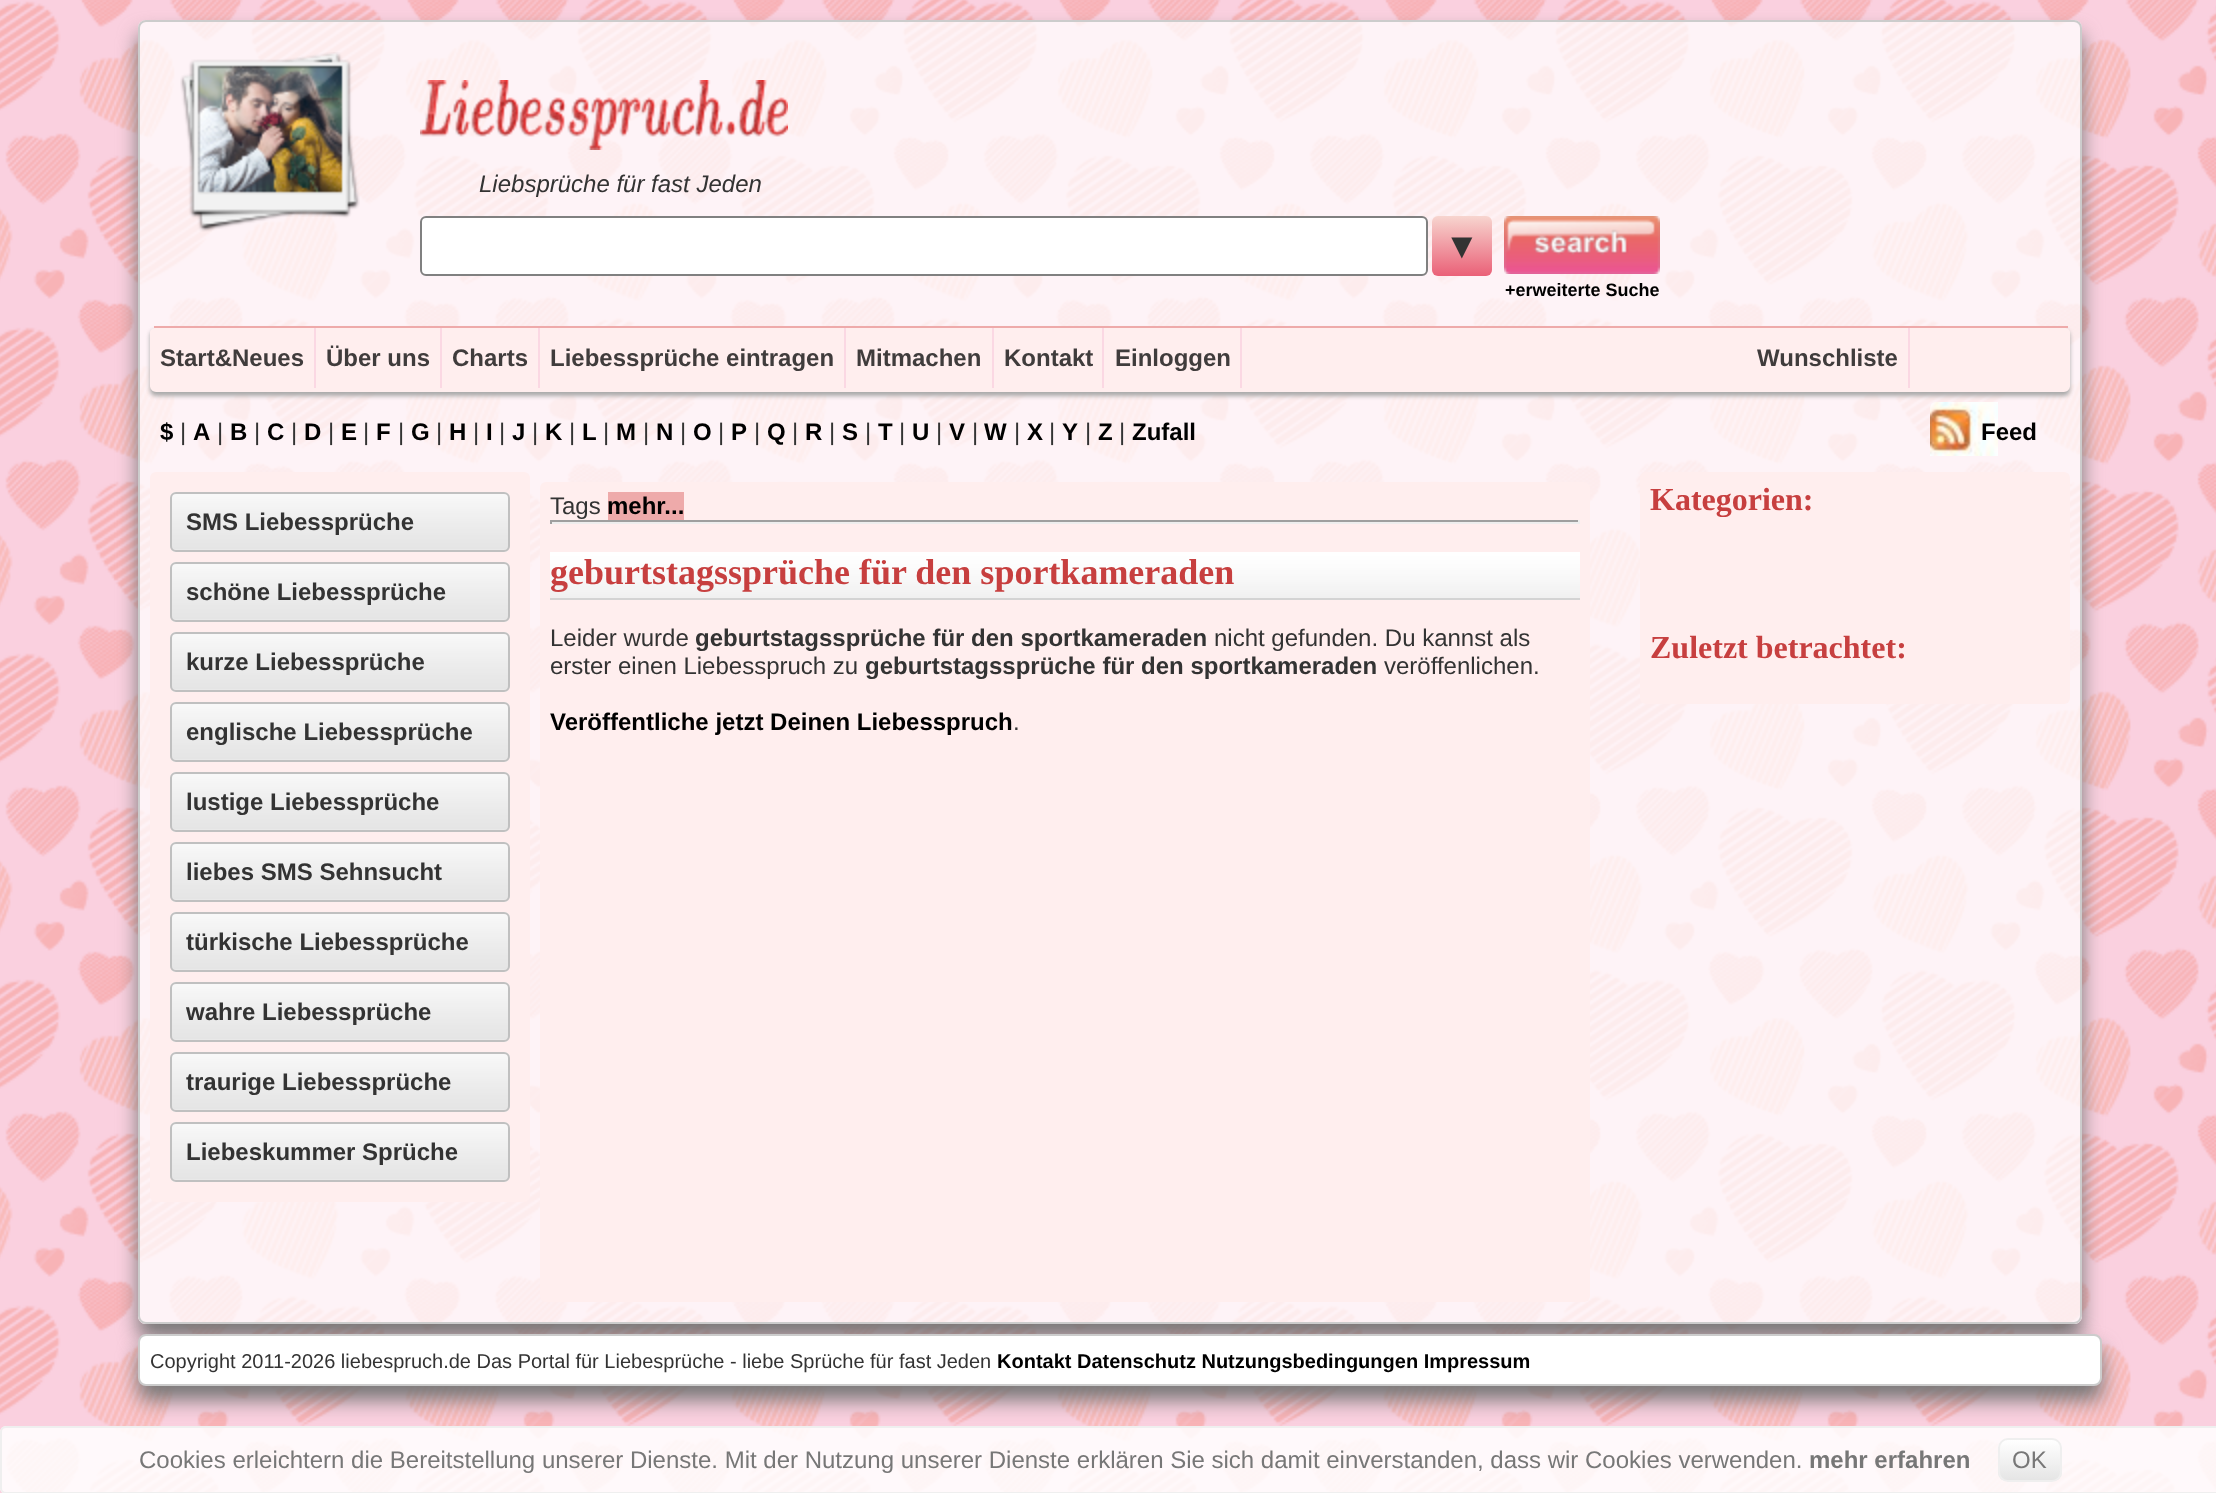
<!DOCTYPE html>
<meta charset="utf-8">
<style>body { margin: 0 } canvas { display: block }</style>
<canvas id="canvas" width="2216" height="1493"></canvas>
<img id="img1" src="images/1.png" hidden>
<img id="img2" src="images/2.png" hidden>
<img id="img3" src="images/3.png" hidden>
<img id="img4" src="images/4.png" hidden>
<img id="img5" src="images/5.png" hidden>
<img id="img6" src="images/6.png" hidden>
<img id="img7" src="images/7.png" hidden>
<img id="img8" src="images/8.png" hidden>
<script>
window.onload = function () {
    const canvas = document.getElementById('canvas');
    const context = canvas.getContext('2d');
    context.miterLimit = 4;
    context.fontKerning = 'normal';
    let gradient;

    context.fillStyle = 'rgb(255, 255, 255)';
    context.fillRect(0, 0, 2216, 1493);
    context.drawImage(document.getElementById('img1'), 0, 0, 2216, 1493);
    context.save();
    context.beginPath();
    context.moveTo(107, 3);
    context.lineTo(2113, 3);
    context.lineTo(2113, 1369);
    context.lineTo(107, 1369);
    context.closePath();
    context.moveTo(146, 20);
    context.lineTo(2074, 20);
    context.bezierCurveTo(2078.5, 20, 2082, 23.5, 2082, 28);
    context.lineTo(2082, 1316);
    context.bezierCurveTo(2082, 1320.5, 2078.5, 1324, 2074, 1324);
    context.lineTo(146, 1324);
    context.bezierCurveTo(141.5, 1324, 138, 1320.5, 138, 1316);
    context.lineTo(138, 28);
    context.bezierCurveTo(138, 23.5, 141.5, 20, 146, 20);
    context.closePath();
    context.clip('evenodd');
    context.fillStyle = 'rgb(119, 119, 119)';
    context.filter = 'blur(10px)';
    context.beginPath();
    context.roundRect(138, 34, 1944, 1304, 8);
    context.fill();
    context.filter = 'none';
    context.restore();
    context.drawImage(document.getElementById('img2'), 138, 20, 1944, 1304);
    context.beginPath();
    context.roundRect(139, 21, 1942, 1302, 7);
    context.strokeStyle = 'rgb(204, 204, 204)';
    context.lineWidth = 2;
    context.stroke();
    context.drawImage(document.getElementById('img3'), 180, 52, 180, 180);
    context.drawImage(document.getElementById('img4'), 420, 80, 368, 70);
    context.beginPath();
    context.roundRect(421, 217, 1006, 58, 5);
    context.fill();
    context.strokeStyle = 'rgb(128, 128, 128)';
    context.stroke();
    gradient = context.createLinearGradient(1462, 216, 1462, 276);
    gradient.addColorStop(0, 'rgb(247, 213, 207)');
    gradient.addColorStop(1, 'rgb(234, 96, 119)');
    context.fillStyle = gradient;
    context.beginPath();
    context.roundRect(1432, 216, 60, 60, 6);
    context.fill();
    context.drawImage(document.getElementById('img5'), 1504, 216, 156, 58);
    context.fillStyle = 'rgb(170, 170, 170)';
    context.filter = 'blur(2px)';
    context.beginPath();
    context.roundRect(150, 330, 1920, 66, 6);
    context.fill();
    context.filter = 'none';
    context.fillStyle = 'rgb(255, 238, 238)';
    context.beginPath();
    context.moveTo(156, 328);
    context.lineTo(2064, 328);
    context.bezierCurveTo(2067, 328, 2070, 330, 2070, 332);
    context.lineTo(2070, 386);
    context.bezierCurveTo(2070, 389, 2067, 392, 2064, 392);
    context.lineTo(156, 392);
    context.bezierCurveTo(153, 392, 150, 389, 150, 386);
    context.lineTo(150, 332);
    context.bezierCurveTo(150, 330, 153, 328, 156, 328);
    context.closePath();
    context.fill();
    context.fillStyle = 'rgb(238, 170, 170)';
    context.fillRect(154, 326, 1914, 2);
    context.fillStyle = 'rgb(251, 216, 227)';
    context.fillRect(314, 328, 2, 60);
    context.fillRect(440, 328, 2, 60);
    context.fillRect(538, 328, 2, 60);
    context.fillRect(844, 328, 2, 60);
    context.fillRect(992, 328, 2, 60);
    context.fillRect(1102, 328, 2, 60);
    context.fillRect(1240, 328, 2, 60);
    context.fillRect(1908, 328, 2, 60);
    context.drawImage(document.getElementById('img6'), 1930, 402, 68, 54);
    context.fillStyle = 'rgb(255, 238, 238)';
    context.beginPath();
    context.roundRect(150, 472, 380, 730, 6);
    context.fill();
    context.drawImage(document.getElementById('img7'), 170, 492, 340, 60);
    context.beginPath();
    context.roundRect(171, 493, 338, 58, 5);
    context.strokeStyle = 'rgb(192, 192, 192)';
    context.stroke();
    context.drawImage(document.getElementById('img7'), 170, 562, 340, 60);
    context.beginPath();
    context.roundRect(171, 563, 338, 58, 5);
    context.stroke();
    context.drawImage(document.getElementById('img7'), 170, 632, 340, 60);
    context.beginPath();
    context.roundRect(171, 633, 338, 58, 5);
    context.stroke();
    context.drawImage(document.getElementById('img7'), 170, 702, 340, 60);
    context.beginPath();
    context.roundRect(171, 703, 338, 58, 5);
    context.stroke();
    context.drawImage(document.getElementById('img7'), 170, 772, 340, 60);
    context.beginPath();
    context.roundRect(171, 773, 338, 58, 5);
    context.stroke();
    context.drawImage(document.getElementById('img7'), 170, 842, 340, 60);
    context.beginPath();
    context.roundRect(171, 843, 338, 58, 5);
    context.stroke();
    context.drawImage(document.getElementById('img7'), 170, 912, 340, 60);
    context.beginPath();
    context.roundRect(171, 913, 338, 58, 5);
    context.stroke();
    context.drawImage(document.getElementById('img7'), 170, 982, 340, 60);
    context.beginPath();
    context.roundRect(171, 983, 338, 58, 5);
    context.stroke();
    context.drawImage(document.getElementById('img7'), 170, 1052, 340, 60);
    context.beginPath();
    context.roundRect(171, 1053, 338, 58, 5);
    context.stroke();
    context.drawImage(document.getElementById('img7'), 170, 1122, 340, 60);
    context.beginPath();
    context.roundRect(171, 1123, 338, 58, 5);
    context.stroke();
    context.beginPath();
    context.roundRect(540, 482, 1050, 820, 6);
    context.fill();
    context.fillStyle = 'rgb(238, 170, 170)';
    context.fillRect(608, 492, 76, 28);
    context.fillStyle = 'rgb(159, 159, 159)';
    context.fillRect(550, 520, 1030, 2);
    context.fillStyle = 'rgb(238, 238, 238)';
    context.fillRect(1578, 520, 2, 4);
    context.fillRect(550, 522, 1030, 2);
    context.fillStyle = 'rgb(159, 159, 159)';
    context.fillRect(550, 520, 2, 4);
    context.drawImage(document.getElementById('img8'), 550, 552, 1030, 46);
    context.fillStyle = 'rgb(211, 211, 211)';
    context.fillRect(550, 598, 1030, 2);
    context.fillStyle = 'rgb(255, 238, 238)';
    context.beginPath();
    context.roundRect(1640, 472, 430, 232, 6);
    context.fill();
    context.fillStyle = 'rgb(119, 119, 119)';
    context.filter = 'blur(10px)';
    context.beginPath();
    context.roundRect(138, 1348, 1964, 52, 8);
    context.fill();
    context.filter = 'none';
    context.fillStyle = 'rgb(255, 255, 255)';
    context.beginPath();
    context.roundRect(139, 1335, 1962, 50, 7);
    context.fill();
    context.strokeStyle = 'rgb(204, 204, 204)';
    context.stroke();
    context.fillStyle = 'rgba(255, 255, 255, 0.87)';
    context.beginPath();
    context.roundRect(0, 1426, 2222, 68, 6);
    context.fill();
    context.beginPath();
    context.roundRect(1, 1427, 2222, 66, 5);
    context.strokeStyle = 'rgba(238, 238, 238, 0.95)';
    context.stroke();
    context.save();
    context.beginPath();
    context.roundRect(1998, 1438, 64, 44, 10);
    context.clip();
    gradient = context.createLinearGradient(2030, 1440, 2030, 1480);
    gradient.addColorStop(0, 'rgb(255, 255, 255)');
    gradient.addColorStop(1, 'rgb(229, 229, 229)');
    context.fillStyle = gradient;
    context.fillRect(1998, 1440, 64, 40);
    context.restore();
    context.beginPath();
    context.roundRect(1999, 1439, 62, 42, 9);
    context.strokeStyle = 'rgb(239, 239, 239)';
    context.stroke();
    context.font = 'italic 24px Liberation Sans';
    context.fillStyle = 'rgb(51, 51, 51)';
    context.fillText('Liebsprüche für fast Jeden', 479, 192);
    context.font = '36px Liberation Sans';
    context.fillText('▼', 1444, 258);
    context.font = 'bold 18px Liberation Sans';
    context.fillStyle = 'rgb(0, 0, 0)';
    context.fillText('+erweiterte Suche', 1505, 296);
    context.font = 'bold 24px Liberation Sans';
    context.fillStyle = 'rgb(64, 60, 60)';
    context.fillText('Start&Neues', 160, 366);
    context.fillText('Über uns', 326, 366);
    context.fillText('Charts', 452, 366);
    context.fillText('Liebessprüche eintragen', 550, 366);
    context.fillText('Mitmachen', 856, 366);
    context.fillText('Kontakt', 1004, 366);
    context.fillText('Einloggen', 1115, 366);
    context.fillText('Wunschliste', 1757, 366);
    context.fillStyle = 'rgb(0, 0, 0)';
    context.fillText('$', 160, 440);
    context.font = '24px Liberation Sans';
    context.fillStyle = 'rgb(51, 51, 51)';
    context.fillText('|', 180, 440);
    context.font = 'bold 24px Liberation Sans';
    context.fillStyle = 'rgb(0, 0, 0)';
    context.fillText('A', 193, 440);
    context.font = '24px Liberation Sans';
    context.fillStyle = 'rgb(51, 51, 51)';
    context.fillText('|', 217, 440);
    context.font = 'bold 24px Liberation Sans';
    context.fillStyle = 'rgb(0, 0, 0)';
    context.fillText('B', 230, 440);
    context.font = '24px Liberation Sans';
    context.fillStyle = 'rgb(51, 51, 51)';
    context.fillText('|', 254, 440);
    context.font = 'bold 24px Liberation Sans';
    context.fillStyle = 'rgb(0, 0, 0)';
    context.fillText('C', 267, 440);
    context.font = '24px Liberation Sans';
    context.fillStyle = 'rgb(51, 51, 51)';
    context.fillText('|', 291, 440);
    context.font = 'bold 24px Liberation Sans';
    context.fillStyle = 'rgb(0, 0, 0)';
    context.fillText('D', 304, 440);
    context.font = '24px Liberation Sans';
    context.fillStyle = 'rgb(51, 51, 51)';
    context.fillText('|', 328, 440);
    context.font = 'bold 24px Liberation Sans';
    context.fillStyle = 'rgb(0, 0, 0)';
    context.fillText('E', 341, 440);
    context.font = '24px Liberation Sans';
    context.fillStyle = 'rgb(51, 51, 51)';
    context.fillText('|', 363, 440);
    context.font = 'bold 24px Liberation Sans';
    context.fillStyle = 'rgb(0, 0, 0)';
    context.fillText('F', 376, 440);
    context.font = '24px Liberation Sans';
    context.fillStyle = 'rgb(51, 51, 51)';
    context.fillText('|', 398, 440);
    context.font = 'bold 24px Liberation Sans';
    context.fillStyle = 'rgb(0, 0, 0)';
    context.fillText('G', 411, 440);
    context.font = '24px Liberation Sans';
    context.fillStyle = 'rgb(51, 51, 51)';
    context.fillText('|', 436, 440);
    context.font = 'bold 24px Liberation Sans';
    context.fillStyle = 'rgb(0, 0, 0)';
    context.fillText('H', 449, 440);
    context.font = '24px Liberation Sans';
    context.fillStyle = 'rgb(51, 51, 51)';
    context.fillText('|', 473, 440);
    context.font = 'bold 24px Liberation Sans';
    context.fillStyle = 'rgb(0, 0, 0)';
    context.fillText('I', 486, 440);
    context.font = '24px Liberation Sans';
    context.fillStyle = 'rgb(51, 51, 51)';
    context.fillText('|', 499, 440);
    context.font = 'bold 24px Liberation Sans';
    context.fillStyle = 'rgb(0, 0, 0)';
    context.fillText('J', 512, 440);
    context.font = '24px Liberation Sans';
    context.fillStyle = 'rgb(51, 51, 51)';
    context.fillText('|', 532, 440);
    context.font = 'bold 24px Liberation Sans';
    context.fillStyle = 'rgb(0, 0, 0)';
    context.fillText('K', 545, 440);
    context.font = '24px Liberation Sans';
    context.fillStyle = 'rgb(51, 51, 51)';
    context.fillText('|', 569, 440);
    context.font = 'bold 24px Liberation Sans';
    context.fillStyle = 'rgb(0, 0, 0)';
    context.fillText('L', 582, 440);
    context.font = '24px Liberation Sans';
    context.fillStyle = 'rgb(51, 51, 51)';
    context.fillText('|', 603, 440);
    context.font = 'bold 24px Liberation Sans';
    context.fillStyle = 'rgb(0, 0, 0)';
    context.fillText('M', 616, 440);
    context.font = '24px Liberation Sans';
    context.fillStyle = 'rgb(51, 51, 51)';
    context.fillText('|', 643, 440);
    context.font = 'bold 24px Liberation Sans';
    context.fillStyle = 'rgb(0, 0, 0)';
    context.fillText('N', 656, 440);
    context.font = '24px Liberation Sans';
    context.fillStyle = 'rgb(51, 51, 51)';
    context.fillText('|', 680, 440);
    context.font = 'bold 24px Liberation Sans';
    context.fillStyle = 'rgb(0, 0, 0)';
    context.fillText('O', 693, 440);
    context.font = '24px Liberation Sans';
    context.fillStyle = 'rgb(51, 51, 51)';
    context.fillText('|', 718, 440);
    context.font = 'bold 24px Liberation Sans';
    context.fillStyle = 'rgb(0, 0, 0)';
    context.fillText('P', 731, 440);
    context.font = '24px Liberation Sans';
    context.fillStyle = 'rgb(51, 51, 51)';
    context.fillText('|', 754, 440);
    context.font = 'bold 24px Liberation Sans';
    context.fillStyle = 'rgb(0, 0, 0)';
    context.fillText('Q', 767, 440);
    context.font = '24px Liberation Sans';
    context.fillStyle = 'rgb(51, 51, 51)';
    context.fillText('|', 792, 440);
    context.font = 'bold 24px Liberation Sans';
    context.fillStyle = 'rgb(0, 0, 0)';
    context.fillText('R', 805, 440);
    context.font = '24px Liberation Sans';
    context.fillStyle = 'rgb(51, 51, 51)';
    context.fillText('|', 829, 440);
    context.font = 'bold 24px Liberation Sans';
    context.fillStyle = 'rgb(0, 0, 0)';
    context.fillText('S', 842, 440);
    context.font = '24px Liberation Sans';
    context.fillStyle = 'rgb(51, 51, 51)';
    context.fillText('|', 865, 440);
    context.font = 'bold 24px Liberation Sans';
    context.fillStyle = 'rgb(0, 0, 0)';
    context.fillText('T', 878, 440);
    context.font = '24px Liberation Sans';
    context.fillStyle = 'rgb(51, 51, 51)';
    context.fillText('|', 899, 440);
    context.font = 'bold 24px Liberation Sans';
    context.fillStyle = 'rgb(0, 0, 0)';
    context.fillText('U', 912, 440);
    context.font = '24px Liberation Sans';
    context.fillStyle = 'rgb(51, 51, 51)';
    context.fillText('|', 936, 440);
    context.font = 'bold 24px Liberation Sans';
    context.fillStyle = 'rgb(0, 0, 0)';
    context.fillText('V', 949, 440);
    context.font = '24px Liberation Sans';
    context.fillStyle = 'rgb(51, 51, 51)';
    context.fillText('|', 972, 440);
    context.font = 'bold 24px Liberation Sans';
    context.fillStyle = 'rgb(0, 0, 0)';
    context.fillText('W', 984, 440);
    context.font = '24px Liberation Sans';
    context.fillStyle = 'rgb(51, 51, 51)';
    context.fillText('|', 1014, 440);
    context.font = 'bold 24px Liberation Sans';
    context.fillStyle = 'rgb(0, 0, 0)';
    context.fillText('X', 1027, 440);
    context.font = '24px Liberation Sans';
    context.fillStyle = 'rgb(51, 51, 51)';
    context.fillText('|', 1049, 440);
    context.font = 'bold 24px Liberation Sans';
    context.fillStyle = 'rgb(0, 0, 0)';
    context.fillText('Y', 1062, 440);
    context.font = '24px Liberation Sans';
    context.fillStyle = 'rgb(51, 51, 51)';
    context.fillText('|', 1085, 440);
    context.font = 'bold 24px Liberation Sans';
    context.fillStyle = 'rgb(0, 0, 0)';
    context.fillText('Z', 1098, 440);
    context.font = '24px Liberation Sans';
    context.fillStyle = 'rgb(51, 51, 51)';
    context.fillText('|', 1119, 440);
    context.font = 'bold 24px Liberation Sans';
    context.fillStyle = 'rgb(0, 0, 0)';
    context.fillText('Zufall', 1132, 440);
    context.fillText('Feed', 1981, 440);
    context.fillStyle = 'rgb(51, 51, 51)';
    context.fillText('SMS Liebessprüche', 186, 530);
    context.fillText('schöne Liebessprüche', 186, 600);
    context.fillText('kurze Liebessprüche', 186, 670);
    context.fillText('englische Liebessprüche', 186, 740);
    context.fillText('lustige Liebessprüche', 186, 810);
    context.fillText('liebes SMS Sehnsucht', 186, 880);
    context.fillText('türkische Liebessprüche', 186, 950);
    context.fillText('wahre Liebessprüche', 186, 1020);
    context.fillText('traurige Liebessprüche', 186, 1090);
    context.fillText('Liebeskummer Sprüche', 186, 1160);
    context.font = '24px Liberation Sans';
    context.fillText('Tags', 550, 514);
    context.font = 'bold 24px Liberation Sans';
    context.fillStyle = 'rgb(0, 0, 0)';
    context.fillText('mehr...', 607, 514);
    context.font = 'bold 36px Liberation Serif';
    context.fillStyle = 'rgb(199, 63, 63)';
    context.fillText('geburtstagssprüche für den sportkameraden', 550, 584);
    context.font = '24px Liberation Sans';
    context.fillStyle = 'rgb(51, 51, 51)';
    context.fillText('Leider wurde', 550, 646);
    context.font = 'bold 24px Liberation Sans';
    context.fillText('geburtstagssprüche für den sportkameraden', 695, 646);
    context.font = '24px Liberation Sans';
    context.fillText('nicht gefunden. Du kannst als', 1214, 646);
    context.fillText('erster einen Liebesspruch zu', 550, 674);
    context.font = 'bold 24px Liberation Sans';
    context.fillText('geburtstagssprüche für den sportkameraden', 865, 674);
    context.font = '24px Liberation Sans';
    context.fillText('veröffenlichen.', 1384, 674);
    context.font = 'bold 24px Liberation Sans';
    context.fillStyle = 'rgb(0, 0, 0)';
    context.fillText('Veröffentliche jetzt Deinen Liebesspruch', 550, 730);
    context.font = '24px Liberation Sans';
    context.fillStyle = 'rgb(51, 51, 51)';
    context.fillText('.', 1013, 730);
    context.font = 'bold 32px Liberation Serif';
    context.fillStyle = 'rgb(199, 63, 63)';
    context.fillText('Kategorien:', 1650, 510);
    context.fillText('Zuletzt betrachtet:', 1650, 658);
    context.font = '20px Liberation Sans';
    context.fillStyle = 'rgb(51, 51, 51)';
    context.fillText('Copyright 2011-2026 liebespruch.de Das Portal für Liebesprüche - liebe Sprüche für fast Jeden', 150, 1368);
    context.font = 'bold 20px Liberation Sans';
    context.fillStyle = 'rgb(0, 0, 0)';
    context.fillText('Kontakt Datenschutz Nutzungsbedingungen Impressum', 997, 1368);
    context.font = '24px Liberation Sans';
    context.fillStyle = 'rgb(119, 119, 119)';
    context.fillText('Cookies erleichtern die Bereitstellung unserer Dienste. Mit der Nutzung unserer Dienste erklären Sie sich damit einverstanden, dass wir Cookies verwenden.', 139, 1468);
    context.font = 'bold 24px Liberation Sans';
    context.fillText('mehr erfahren', 1809, 1468);
    context.font = '24px Liberation Sans';
    context.fillText('OK', 2012, 1468);
};
</script>
